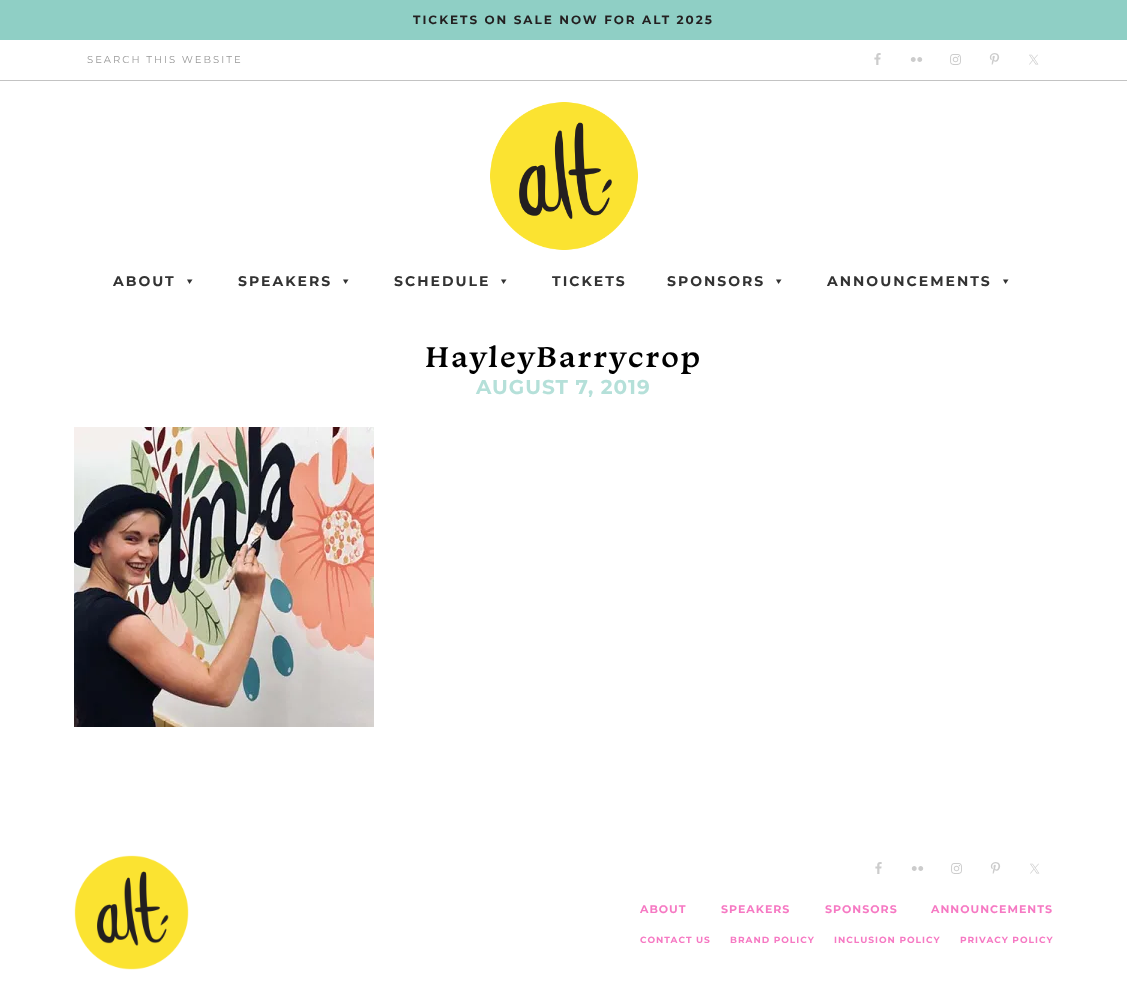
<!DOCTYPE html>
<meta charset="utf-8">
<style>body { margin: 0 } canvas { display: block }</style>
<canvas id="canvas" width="1127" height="1004"></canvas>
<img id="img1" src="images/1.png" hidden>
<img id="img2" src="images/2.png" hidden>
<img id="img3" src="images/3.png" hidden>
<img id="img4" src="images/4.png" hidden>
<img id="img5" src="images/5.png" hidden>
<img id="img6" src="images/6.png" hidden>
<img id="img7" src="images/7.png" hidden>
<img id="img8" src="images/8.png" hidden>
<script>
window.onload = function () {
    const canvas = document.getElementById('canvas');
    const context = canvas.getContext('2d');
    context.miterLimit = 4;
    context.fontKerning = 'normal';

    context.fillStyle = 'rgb(255, 255, 255)';
    context.fillRect(0, 0, 1127, 1004);
    context.fillStyle = 'rgb(143, 207, 197)';
    context.fillRect(0, 0, 1127, 40);
    context.fillStyle = 'rgb(195, 195, 195)';
    context.fillRect(0, 80, 1127, 1);
    context.drawImage(document.getElementById('img1'), 874, 53, 7, 12);
    context.drawImage(document.getElementById('img2'), 910, 57, 13, 5);
    context.drawImage(document.getElementById('img3'), 950, 54, 11, 11);
    context.drawImage(document.getElementById('img4'), 989, 53, 11, 12);
    context.drawImage(document.getElementById('img5'), 1029, 54, 10, 11);
    context.drawImage(document.getElementById('img6'), 490, 102, 148, 148);
    context.fillStyle = 'rgb(51, 51, 51)';
    context.beginPath();
    context.moveTo(192.5, 279.5);
    context.lineTo(189.5, 284);
    context.lineTo(187, 279.5);
    context.closePath();
    context.fill();
    context.beginPath();
    context.moveTo(348.5, 279.5);
    context.lineTo(345.5, 284);
    context.lineTo(343, 279.5);
    context.closePath();
    context.fill();
    context.beginPath();
    context.moveTo(506.5, 279.5);
    context.lineTo(503.5, 284);
    context.lineTo(501, 279.5);
    context.closePath();
    context.fill();
    context.beginPath();
    context.moveTo(781.5, 279.5);
    context.lineTo(778.5, 284);
    context.lineTo(776, 279.5);
    context.closePath();
    context.fill();
    context.beginPath();
    context.moveTo(1008.5, 279.5);
    context.lineTo(1005.5, 284);
    context.lineTo(1003, 279.5);
    context.closePath();
    context.fill();
    context.drawImage(document.getElementById('img7'), 74, 427, 300, 300);
    context.drawImage(document.getElementById('img8'), 74, 855, 115, 115);
    context.drawImage(document.getElementById('img1'), 875, 862, 7, 12);
    context.drawImage(document.getElementById('img2'), 911, 866, 13, 5);
    context.drawImage(document.getElementById('img3'), 951, 863, 11, 11);
    context.drawImage(document.getElementById('img4'), 990, 862, 11, 12);
    context.drawImage(document.getElementById('img5'), 1030, 863, 10, 11);
    context.letterSpacing = '2px';
    context.font = 'bold 12px Montserrat';
    context.fillStyle = 'rgb(35, 31, 32)';
    context.fillText('TICKETS ON SALE NOW FOR ALT 2025', 413, 24);
    context.font = '10px Montserrat';
    context.fillStyle = 'rgb(153, 153, 153)';
    context.fillText('SEARCH THIS WEBSITE', 87, 63);
    context.font = 'bold 14px Montserrat';
    context.fillStyle = 'rgb(51, 51, 51)';
    context.fillText('ABOUT', 113, 286);
    context.fillText('SPEAKERS', 238, 286);
    context.fillText('SCHEDULE', 394, 286);
    context.fillText('TICKETS', 552, 286);
    context.fillText('SPONSORS', 667, 286);
    context.fillText('ANNOUNCEMENTS', 827, 286);
    context.font = '600 30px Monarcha';
    context.fillStyle = 'rgb(0, 0, 0)';
    context.fillText('HayleyBarrycrop', 425, 367);
    context.letterSpacing = '1px';
    context.font = 'bold 20px Montserrat';
    context.fillStyle = 'rgb(181, 224, 217)';
    context.fillText('AUGUST 7, 2019', 476, 394);
    context.font = 'bold 11px Montserrat';
    context.fillStyle = 'rgb(246, 121, 195)';
    context.fillText('ABOUT', 640, 913);
    context.fillText('SPEAKERS', 721, 913);
    context.fillText('SPONSORS', 825, 913);
    context.fillText('ANNOUNCEMENTS', 931, 913);
    context.font = 'bold 9px Montserrat';
    context.fillText('CONTACT US', 640, 943);
    context.fillText('BRAND POLICY', 730, 943);
    context.fillText('INCLUSION POLICY', 834, 943);
    context.fillText('PRIVACY POLICY', 960, 943);
};
</script>
